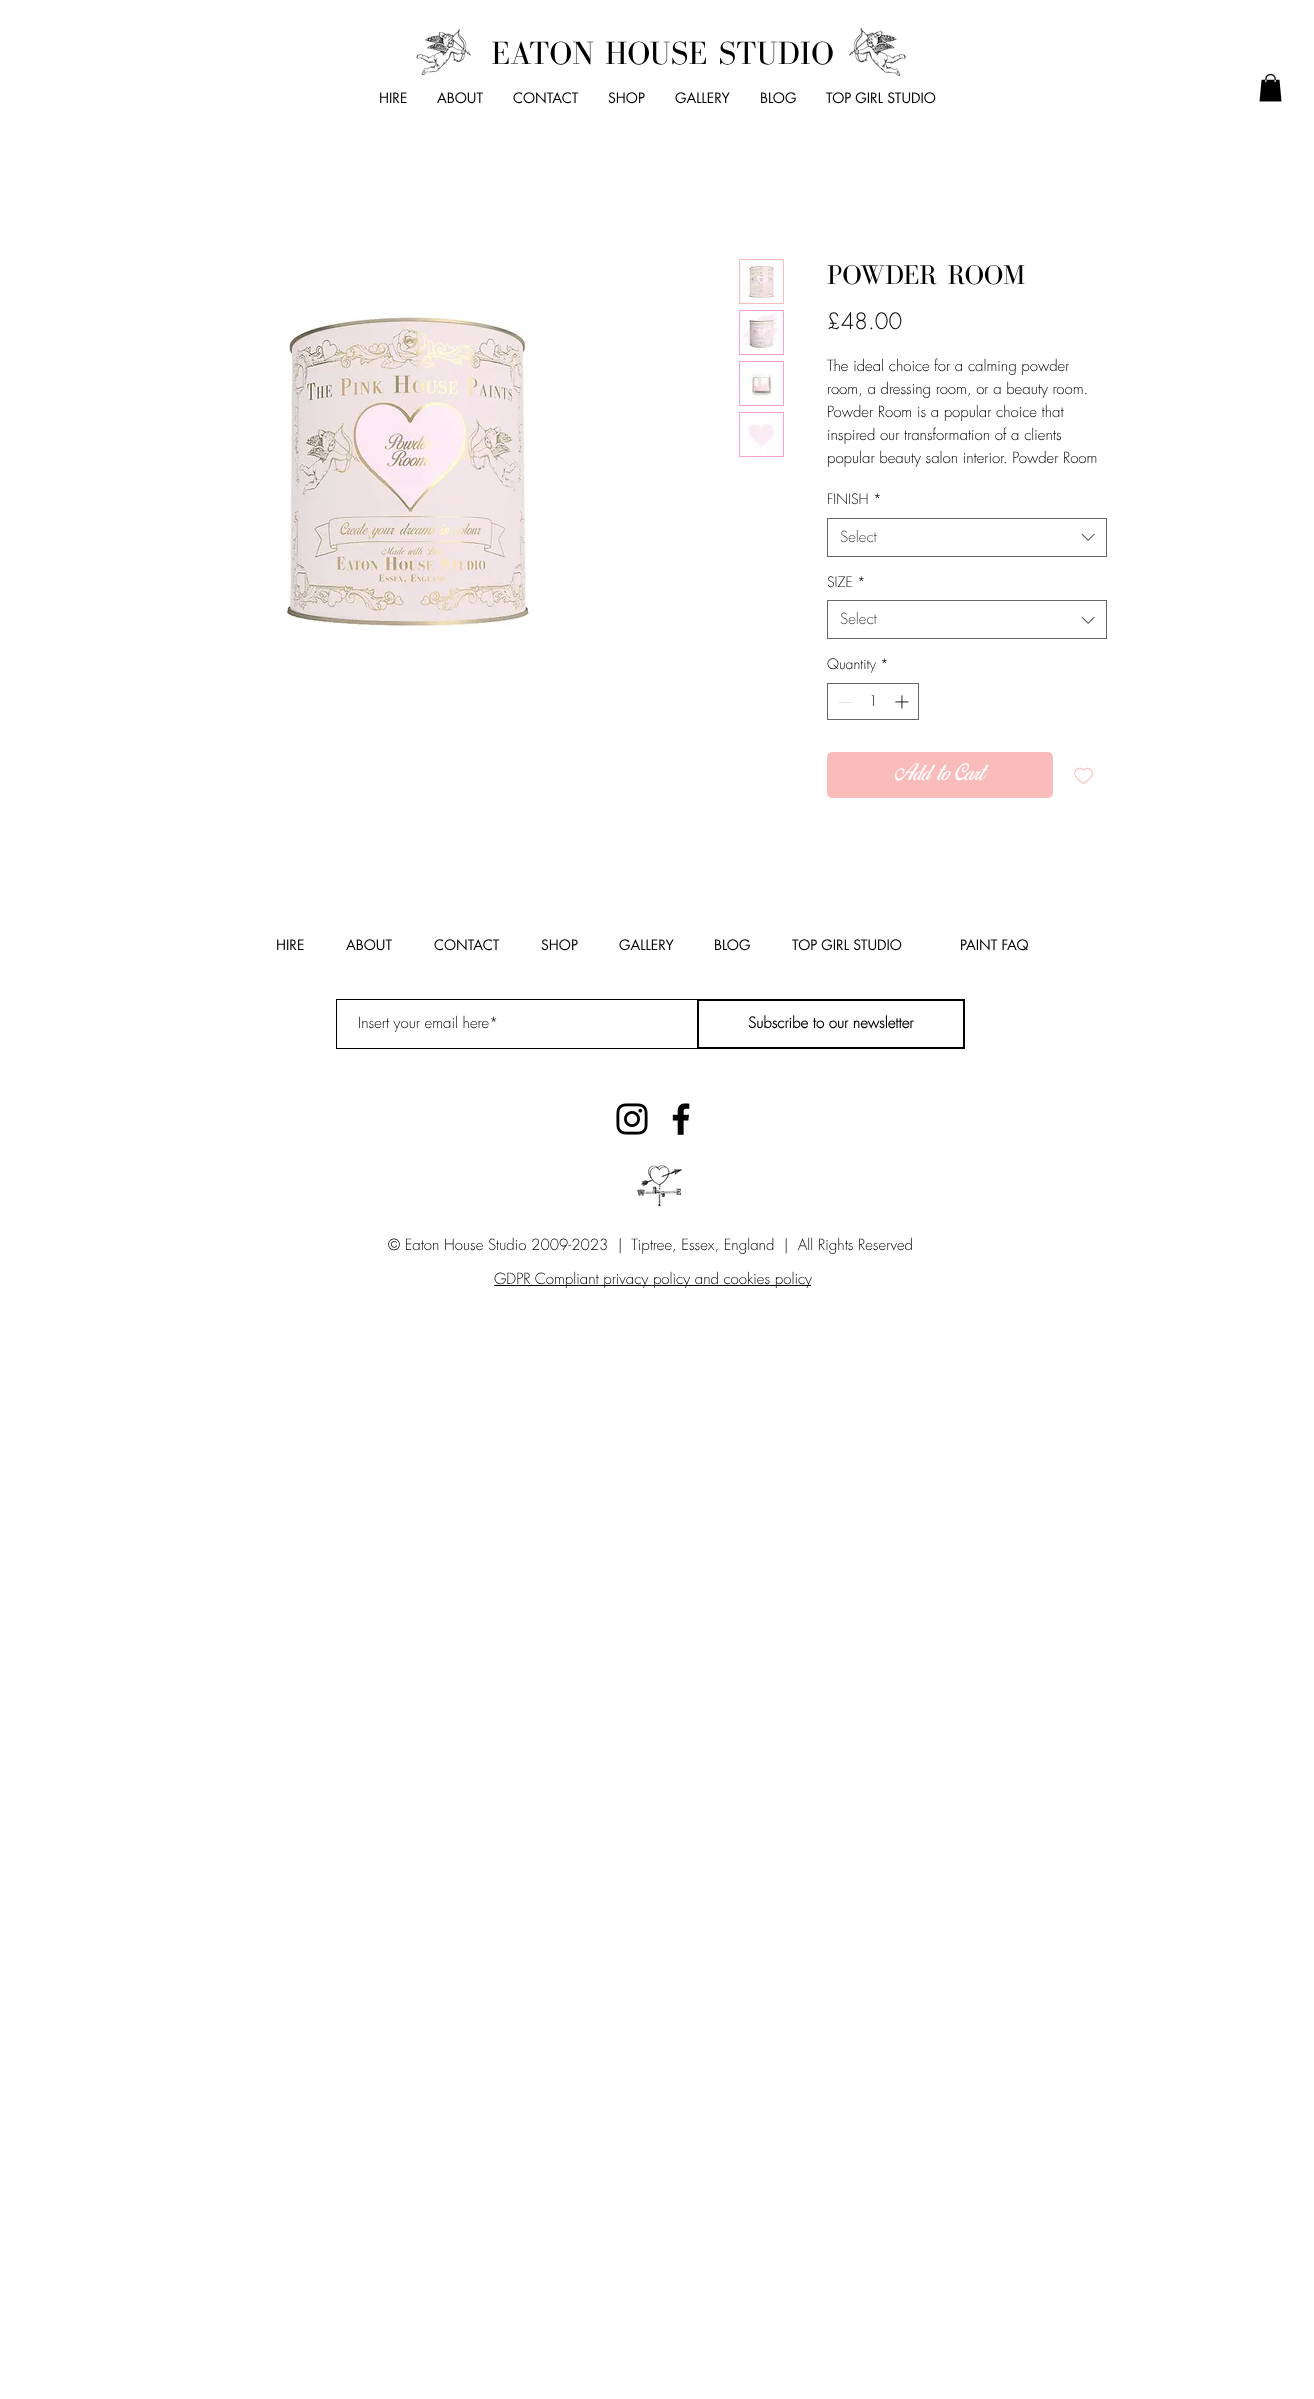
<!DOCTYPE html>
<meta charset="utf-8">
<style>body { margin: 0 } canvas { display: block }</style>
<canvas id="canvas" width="1314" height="2399"></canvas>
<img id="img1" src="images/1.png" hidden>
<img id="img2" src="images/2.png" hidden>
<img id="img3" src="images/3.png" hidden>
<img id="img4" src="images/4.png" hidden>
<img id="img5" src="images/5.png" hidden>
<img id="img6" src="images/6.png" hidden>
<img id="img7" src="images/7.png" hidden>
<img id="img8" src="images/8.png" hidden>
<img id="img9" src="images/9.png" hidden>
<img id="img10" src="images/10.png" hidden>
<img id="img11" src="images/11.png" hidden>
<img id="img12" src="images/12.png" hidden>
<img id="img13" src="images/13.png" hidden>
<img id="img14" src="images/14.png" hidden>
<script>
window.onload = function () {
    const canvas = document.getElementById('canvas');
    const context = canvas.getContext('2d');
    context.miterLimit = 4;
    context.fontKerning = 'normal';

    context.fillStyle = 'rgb(255, 255, 255)';
    context.fillRect(0, 0, 1314, 2399);
    context.drawImage(document.getElementById('img1'), 416, 29, 55, 46);
    context.drawImage(document.getElementById('img2'), 849, 28, 57, 48);
    context.drawImage(document.getElementById('img3'), 1259, 74, 23, 28);
    context.drawImage(document.getElementById('img4'), 286, 315, 244, 312);
    context.strokeStyle = 'rgb(250, 187, 187)';
    context.strokeRect(739.5, 259.5, 44, 44);
    context.drawImage(document.getElementById('img5'), 740, 260, 43, 43);
    context.fillStyle = 'rgb(251, 161, 210)';
    context.fillRect(739, 310, 45, 45);
    context.drawImage(document.getElementById('img6'), 740, 311, 43, 43);
    context.fillRect(739, 361, 45, 45);
    context.drawImage(document.getElementById('img7'), 740, 362, 43, 43);
    context.fillRect(739, 412, 45, 45);
    context.drawImage(document.getElementById('img8'), 740, 413, 43, 43);
    context.strokeStyle = 'rgb(102, 102, 102)';
    context.strokeRect(827.5, 518.5, 279, 38);
    context.drawImage(document.getElementById('img9'), 1081, 533, 14, 8);
    context.strokeRect(827.5, 600.5, 279, 38);
    context.drawImage(document.getElementById('img9'), 1081, 616, 14, 8);
    context.strokeRect(827.5, 683.5, 91, 36);
    context.fillStyle = 'rgb(227, 227, 227)';
    context.fillRect(839, 702, 13, 1);
    context.drawImage(document.getElementById('img10'), 895, 695, 14, 14);
    context.fillStyle = 'rgb(250, 187, 187)';
    context.beginPath();
    context.roundRect(827, 752, 226, 46, 5);
    context.fill();
    context.drawImage(document.getElementById('img11'), 1074, 767, 19, 17);
    context.strokeStyle = 'rgb(0, 0, 0)';
    context.strokeRect(336.5, 999.5, 361, 49);
    context.lineWidth = 2;
    context.strokeRect(698, 1000, 266, 48);
    context.drawImage(document.getElementById('img12'), 616, 1103, 32, 32);
    context.drawImage(document.getElementById('img13'), 672, 1103, 18, 32);
    context.drawImage(document.getElementById('img14'), 636, 1165, 46, 42);
    context.fillStyle = 'rgb(0, 0, 0)';
    context.fillRect(494, 1285, 317, 1);
    context.wordSpacing = '2px';
    context.font = '33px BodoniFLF';
    context.fillText('EATON HOUSE STUDIO', 491, 64);
    context.wordSpacing = '0px';
    context.font = '14px futura';
    context.fillText('HIRE', 379, 103);
    context.fillText('ABOUT', 437, 103);
    context.fillText('CONTACT', 513, 103);
    context.fillText('SHOP', 608, 103);
    context.fillText('GALLERY', 675, 103);
    context.fillText('BLOG', 760, 103);
    context.fillText('TOP GIRL STUDIO', 826, 103);
    context.wordSpacing = '3px';
    context.font = '28px BodoniFLF';
    context.fillText('POWDER ROOM', 827, 284);
    context.wordSpacing = '0px';
    context.font = '300 22px futura';
    context.fillText('£48.00', 827, 329);
    context.font = '300 15px futura';
    context.fillText('The ideal choice for a calming powder', 827, 371);
    context.fillText('room, a dressing room, or a beauty room.', 827, 394);
    context.fillText('Powder Room is a popular choice that', 827, 417);
    context.fillText('inspired our transformation of a clients', 827, 440);
    context.fillText('popular beauty salon interior. Powder Room', 827, 463);
    context.font = '300 14px futura';
    context.fillText('FINISH', 827, 504);
    context.fillText('*', 873, 504);
    context.font = '300 15px futura';
    context.fillStyle = 'rgb(68, 68, 68)';
    context.fillText('Select', 840, 542);
    context.font = '300 14px futura';
    context.fillStyle = 'rgb(0, 0, 0)';
    context.fillText('SIZE', 827, 587);
    context.fillText('*', 857, 587);
    context.font = '300 15px futura';
    context.fillStyle = 'rgb(68, 68, 68)';
    context.fillText('Select', 840, 624);
    context.font = '300 14px futura';
    context.fillStyle = 'rgb(0, 0, 0)';
    context.fillText('Quantity', 827, 669);
    context.fillText('*', 880, 669);
    context.fillText('1', 869, 706);
    context.font = '20px "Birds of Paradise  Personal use"';
    context.fillStyle = 'rgb(255, 255, 255)';
    context.fillText('Add to Cart', 896, 780);
    context.font = '14px futura';
    context.fillStyle = 'rgb(0, 0, 0)';
    context.fillText('HIRE', 276, 950);
    context.fillText('ABOUT', 346, 950);
    context.fillText('CONTACT', 434, 950);
    context.fillText('SHOP', 541, 950);
    context.fillText('GALLERY', 619, 950);
    context.fillText('BLOG', 714, 950);
    context.fillText('TOP GIRL STUDIO', 792, 950);
    context.fillText('PAINT FAQ', 960, 950);
    context.font = '300 15px futura';
    context.fillText('Insert your email here*', 358, 1028);
    context.font = 'bold 15px futura';
    context.fillText('Subscribe to our newsletter', 748, 1028);
    context.font = '300 15px futura';
    context.fillText('© Eaton House Studio 2009-2023  |  Tiptree, Essex, England  |  All Rights Reserved', 388, 1250);
    context.fillText('GDPR Compliant privacy policy and cookies policy', 494, 1284);
};
</script>
